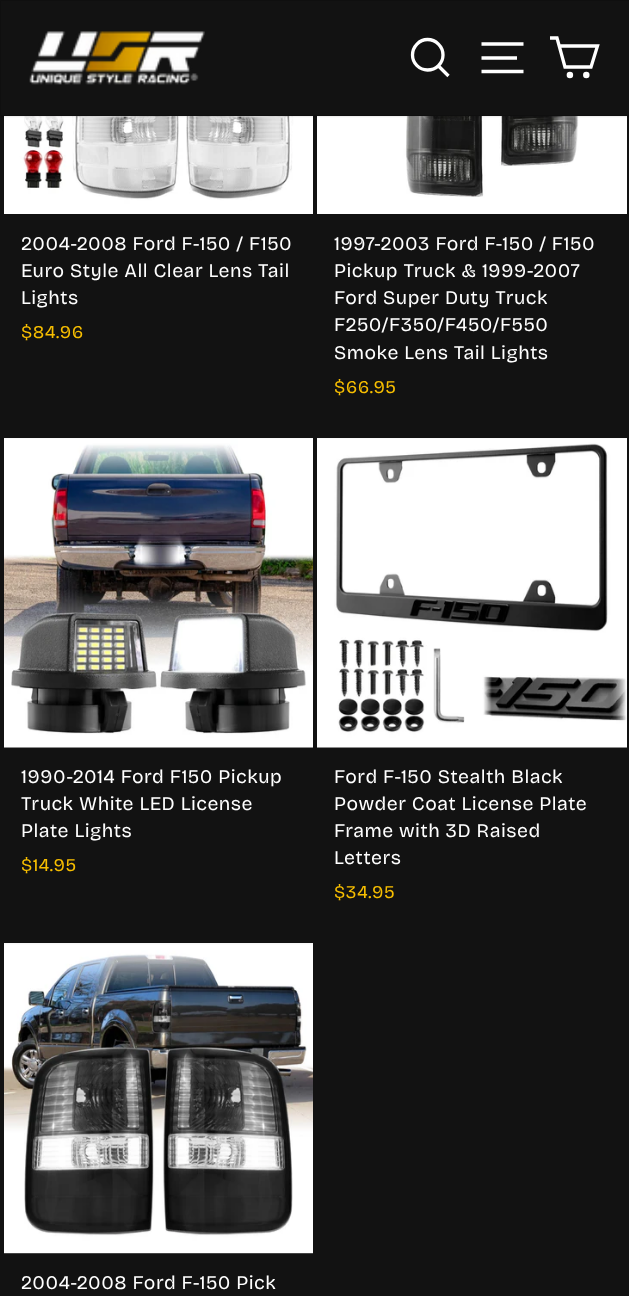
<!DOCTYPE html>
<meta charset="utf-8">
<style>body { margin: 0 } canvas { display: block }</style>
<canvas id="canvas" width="629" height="1296"></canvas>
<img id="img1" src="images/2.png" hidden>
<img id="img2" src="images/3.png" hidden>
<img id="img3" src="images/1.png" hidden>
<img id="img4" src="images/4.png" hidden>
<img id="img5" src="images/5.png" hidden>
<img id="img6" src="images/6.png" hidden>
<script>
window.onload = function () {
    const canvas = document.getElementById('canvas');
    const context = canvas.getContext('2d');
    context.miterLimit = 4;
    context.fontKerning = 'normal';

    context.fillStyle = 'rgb(18, 18, 18)';
    context.fillRect(0, 0, 629, 1296);
    context.drawImage(document.getElementById('img1'), 4, 116, 309, 98);
    context.drawImage(document.getElementById('img2'), 317, 116, 310, 98);
    context.fillStyle = 'rgba(0, 0, 0, 0.2)';
    context.filter = 'blur(1px)';
    context.beginPath();
    context.rect(0, 0, 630, 116);
    context.fill();
    context.filter = 'none';
    context.fillStyle = 'rgb(18, 18, 18)';
    context.fillRect(1, 1, 628, 114);
    context.drawImage(document.getElementById('img3'), 29, 31, 176, 54);
    context.beginPath();
    context.moveTo(443, 55);
    context.bezierCurveTo(443, 63.5, 436, 70, 427.5, 70);
    context.bezierCurveTo(419.5, 70, 412.5, 63.5, 412.5, 55);
    context.bezierCurveTo(412.5, 46.5, 419.5, 39.5, 427.5, 39.5);
    context.bezierCurveTo(436, 39.5, 443, 46.5, 443, 55);
    context.closePath();
    context.moveTo(448.5, 76);
    context.lineTo(438.5, 66);
    context.strokeStyle = 'rgb(255, 255, 255)';
    context.lineWidth = 3.3;
    context.stroke();
    context.beginPath();
    context.moveTo(481.5, 44);
    context.lineTo(523.5, 44);
    context.moveTo(481.5, 58);
    context.lineTo(517, 58);
    context.moveTo(481.5, 71.5);
    context.lineTo(523.5, 71.5);
    context.stroke();
    context.beginPath();
    context.moveTo(559, 46);
    context.lineTo(597.5, 46);
    context.lineTo(591, 67);
    context.lineTo(565, 67);
    context.lineTo(557, 38);
    context.lineTo(550, 38);
    context.stroke();
    context.beginPath();
    context.arc(569.9, 75, 1.6, 0, 2 * Math.PI);
    context.stroke();
    context.beginPath();
    context.arc(586.3, 75, 1.6, 0, 2 * Math.PI);
    context.stroke();
    context.drawImage(document.getElementById('img4'), 4, 438, 309, 310);
    context.drawImage(document.getElementById('img5'), 317, 438, 310, 310);
    context.drawImage(document.getElementById('img6'), 4, 943, 309, 311);
    context.letterSpacing = '0.5px';
    context.font = '19.25px Bricolage Grotesque';
    context.fillStyle = 'rgb(255, 255, 255)';
    context.fillText('2004-2008 Ford F-150 / F150', 21, 250);
    context.fillText('Euro Style All Clear Lens Tail', 21, 277);
    context.fillText('Lights', 21, 304);
    context.font = '18px Bricolage Grotesque';
    context.fillStyle = 'rgb(247, 190, 0)';
    context.fillText('$84.96', 21, 338);
    context.font = '19.25px Bricolage Grotesque';
    context.fillStyle = 'rgb(255, 255, 255)';
    context.fillText('1997-2003 Ford F-150 / F150', 334, 250);
    context.fillText('Pickup Truck & 1999-2007', 334, 277);
    context.fillText('Ford Super Duty Truck', 334, 304);
    context.fillText('F250/F350/F450/F550', 334, 331);
    context.fillText('Smoke Lens Tail Lights', 334, 359);
    context.font = '18px Bricolage Grotesque';
    context.fillStyle = 'rgb(247, 190, 0)';
    context.fillText('$66.95', 334, 393);
    context.font = '19.25px Bricolage Grotesque';
    context.fillStyle = 'rgb(255, 255, 255)';
    context.fillText('1990-2014 Ford F150 Pickup', 21, 783);
    context.fillText('Truck White LED License', 21, 810);
    context.fillText('Plate Lights', 21, 837);
    context.font = '18px Bricolage Grotesque';
    context.fillStyle = 'rgb(247, 190, 0)';
    context.fillText('$14.95', 21, 871);
    context.font = '19.25px Bricolage Grotesque';
    context.fillStyle = 'rgb(255, 255, 255)';
    context.fillText('Ford F-150 Stealth Black', 334, 783);
    context.fillText('Powder Coat License Plate', 334, 810);
    context.fillText('Frame with 3D Raised', 334, 837);
    context.fillText('Letters', 334, 864);
    context.font = '18px Bricolage Grotesque';
    context.fillStyle = 'rgb(247, 190, 0)';
    context.fillText('$34.95', 334, 898);
    context.font = '19.25px Bricolage Grotesque';
    context.fillStyle = 'rgb(255, 255, 255)';
    context.fillText('2004-2008 Ford F-150 Pick', 21, 1289);
};
</script>
